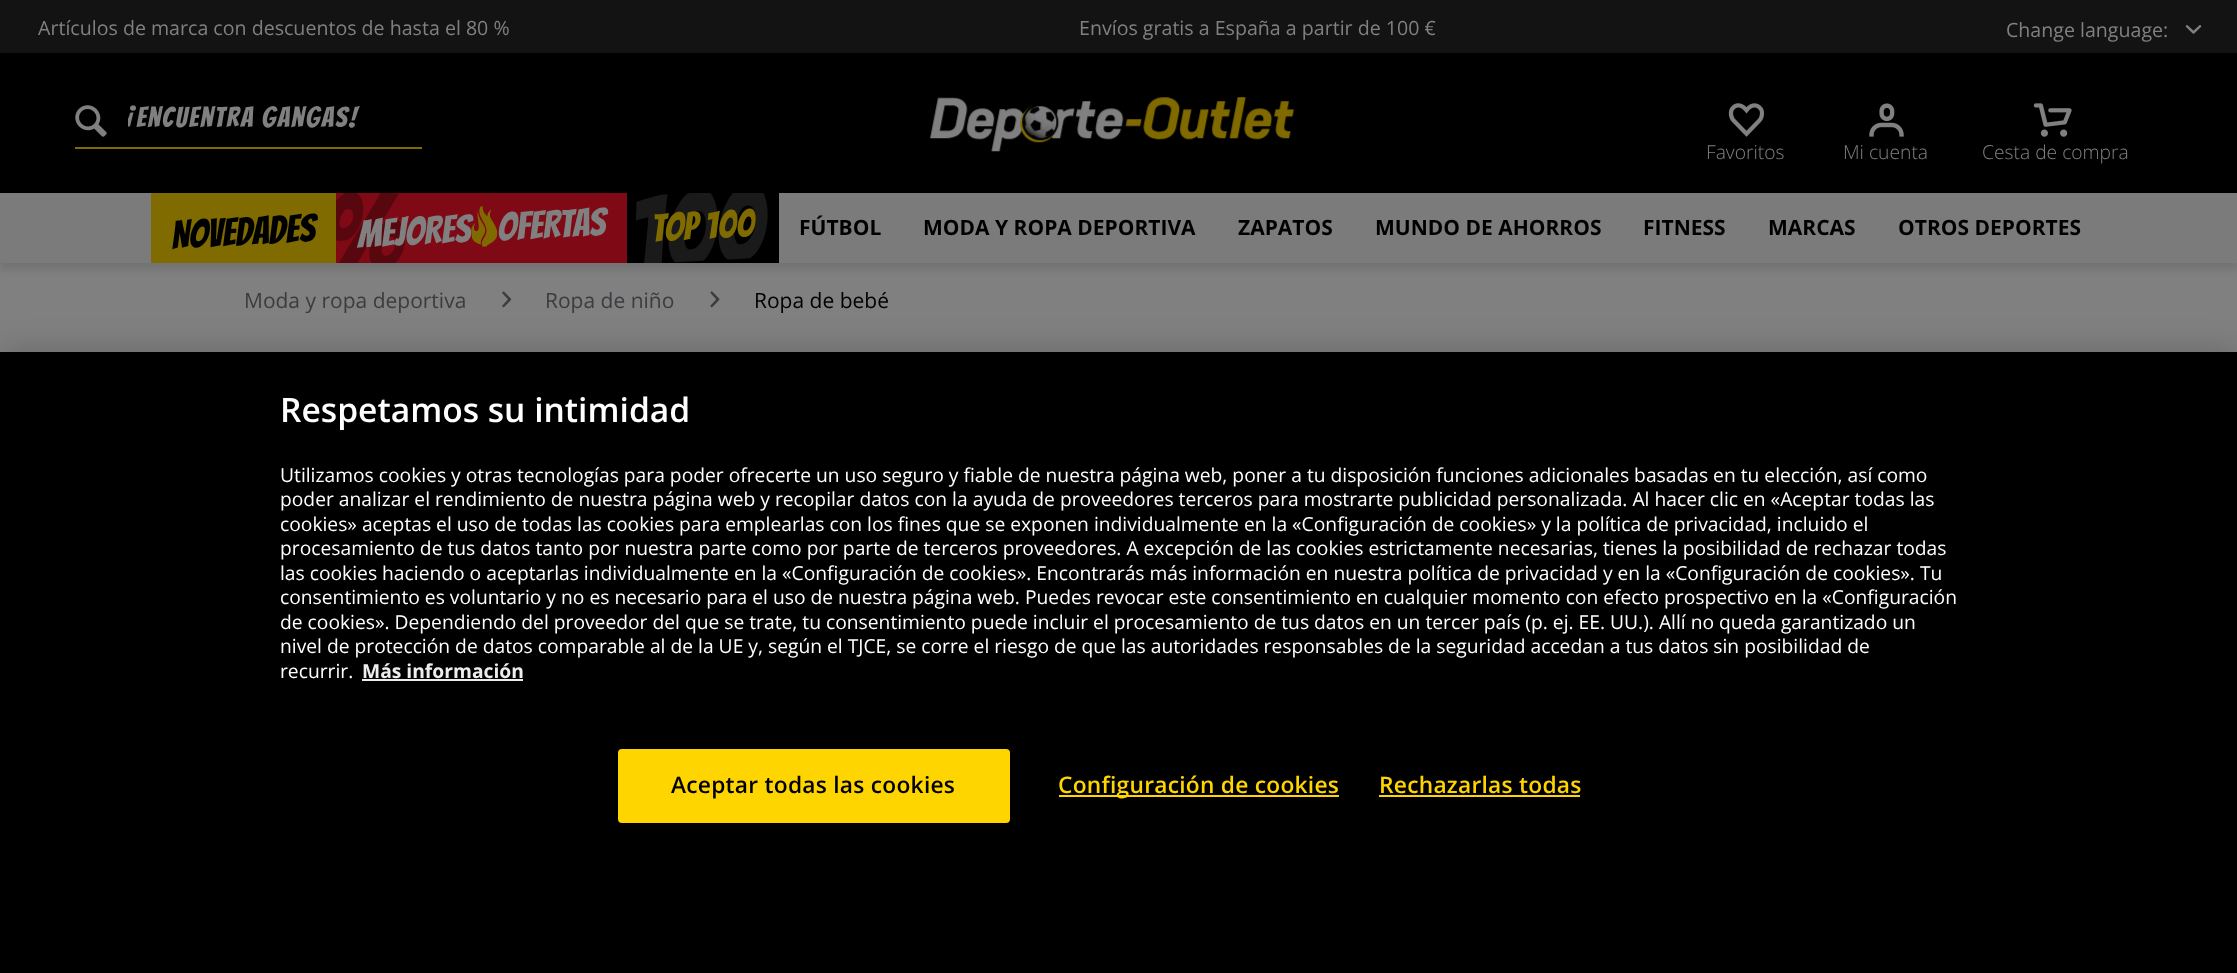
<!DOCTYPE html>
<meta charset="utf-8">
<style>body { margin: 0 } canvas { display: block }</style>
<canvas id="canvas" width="2237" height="973"></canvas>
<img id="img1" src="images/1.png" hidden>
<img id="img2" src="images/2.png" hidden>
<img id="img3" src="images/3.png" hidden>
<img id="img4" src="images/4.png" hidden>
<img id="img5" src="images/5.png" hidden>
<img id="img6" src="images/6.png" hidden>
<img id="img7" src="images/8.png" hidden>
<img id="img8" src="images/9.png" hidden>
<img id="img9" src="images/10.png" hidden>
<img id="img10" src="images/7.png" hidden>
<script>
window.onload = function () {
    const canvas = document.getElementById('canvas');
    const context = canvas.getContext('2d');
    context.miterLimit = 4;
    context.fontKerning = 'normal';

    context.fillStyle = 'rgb(128, 128, 128)';
    context.fillRect(0, 0, 2237, 973);
    context.fillStyle = 'rgba(0, 0, 0, 0.1)';
    context.filter = 'blur(3.5px)';
    context.beginPath();
    context.rect(0, 200, 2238, 70);
    context.fill();
    context.filter = 'none';
    context.fillStyle = 'rgb(0, 0, 0)';
    context.fillRect(0, 53, 2237, 140);
    context.fillStyle = 'rgb(19, 19, 19)';
    context.fillRect(0, 0, 2237, 53);
    context.drawImage(document.getElementById('img1'), 2185, 25, 17, 9);
    context.drawImage(document.getElementById('img2'), 75, 105, 32, 32);
    context.fillStyle = 'rgb(128, 107, 0)';
    context.fillRect(75, 147, 347, 2);
    context.drawImage(document.getElementById('img3'), 930, 97, 365, 55);
    context.drawImage(document.getElementById('img4'), 1728, 103, 36, 34);
    context.drawImage(document.getElementById('img5'), 1869, 103, 35, 34);
    context.drawImage(document.getElementById('img6'), 2033, 103, 39, 34);
    context.fillStyle = 'rgb(123, 123, 123)';
    context.fillRect(0, 193, 2237, 70);
    context.fillStyle = 'rgb(128, 107, 0)';
    context.fillRect(151, 193, 185, 70);
    context.fillStyle = 'rgb(127, 9, 21)';
    context.fillRect(336, 193, 291, 70);
    context.fillStyle = 'rgb(0, 0, 0)';
    context.fillRect(627, 193, 152, 70);
    context.drawImage(document.getElementById('img7'), 635, 193, 133, 70);
    context.drawImage(document.getElementById('img8'), 502, 291, 10, 17);
    context.drawImage(document.getElementById('img9'), 710, 291, 10, 17);
    context.fillStyle = 'rgba(0, 0, 0, 0.2)';
    context.filter = 'blur(16px)';
    context.beginPath();
    context.rect(0, 352, 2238, 621);
    context.fill();
    context.filter = 'none';
    context.fillStyle = 'rgb(0, 0, 0)';
    context.fillRect(0, 352, 2237, 621);
    context.fillStyle = 'rgb(237, 237, 237)';
    context.fillRect(362, 679, 161, 2);
    context.fillStyle = 'rgb(255, 213, 0)';
    context.beginPath();
    context.roundRect(619, 750, 390, 72, 3);
    context.fill();
    context.strokeStyle = 'rgb(255, 213, 0)';
    context.lineWidth = 2;
    context.stroke();
    context.fillRect(1059, 795, 280, 2);
    context.fillRect(1379, 795, 201, 2);
    context.font = '19.6px Open Sans';
    context.fillStyle = 'rgb(128, 128, 128)';
    context.fillText('Artículos de marca con descuentos de hasta el 80 %', 38, 35);
    context.fillText('Envíos gratis a España a partir de 100 €', 1079, 35);
    context.fillText('Change language:', 2006, 37);
    context.save();
    context.beginPath();
    context.rect(128, 95, 278, 38);
    context.clip();
    context.letterSpacing = '1.75px';
    context.font = '28px Bangers';
    context.fillText('¡Encuentra gangas!', 127, 127);
    context.restore();
    context.font = '300 19.25px Open Sans';
    context.fillText('Favoritos', 1706, 159);
    context.fillText('Mi cuenta', 1843, 159);
    context.fillText('Cesta de compra', 1982, 159);
    context.font = '38.5px Bangers';
    context.fillStyle = 'rgb(0, 0, 0)';
    context.save();
    context.translate(172, 249);
    context.rotate(-3 * Math.PI / 180);
    context.fillText('NOVEDADES', 0, 0);
    context.restore();
    context.save();
    context.beginPath();
    context.rect(336, 193, 291, 70);
    context.clip();
    context.font = '105px Bangers';
    context.fillStyle = 'rgb(89, 7, 15)';
    context.save();
    context.translate(321, 274);
    context.rotate(-3 * Math.PI / 180);
    context.fillText('%', 0, 0);
    context.restore();
    context.restore();
    context.fillStyle = 'rgb(128, 128, 128)';
    context.save();
    context.translate(498, 241);
    context.rotate(-3 * Math.PI / 180);
    context.fillText('OFERTAS', 0, 0);
    context.restore();
    context.save();
    context.translate(358, 248);
    context.rotate(-3 * Math.PI / 180);
    context.fillText('MEJORES', 0, 0);
    context.restore();
    context.drawImage(document.getElementById('img10'), 471, 206, 27, 41);
    context.fillStyle = 'rgb(128, 107, 0)';
    context.save();
    context.translate(652, 242);
    context.rotate(-3 * Math.PI / 180);
    context.fillText('TOP 100', 0, 0);
    context.restore();
    context.font = 'bold 21px Open Sans';
    context.fillStyle = 'rgb(0, 0, 0)';
    context.fillText('FÚTBOL', 799, 235);
    context.fillText('MODA Y ROPA DEPORTIVA', 923, 235);
    context.fillText('ZAPATOS', 1238, 235);
    context.fillText('MUNDO DE AHORROS', 1375, 235);
    context.fillText('FITNESS', 1643, 235);
    context.fillText('MARCAS', 1768, 235);
    context.fillText('OTROS DEPORTES', 1898, 235);
    context.font = '21px Open Sans';
    context.fillStyle = 'rgb(58, 60, 63)';
    context.fillText('Moda y ropa deportiva', 244, 308);
    context.fillText('Ropa de niño', 545, 308);
    context.fillStyle = 'rgb(0, 0, 0)';
    context.fillText('Ropa de bebé', 754, 308);
    context.font = '600 33.6px Open Sans';
    context.fillStyle = 'rgb(255, 255, 255)';
    context.fillText('Respetamos su intimidad', 280, 422);
    context.font = '19.25px Open Sans';
    context.fillText('Utilizamos cookies y otras tecnologías para poder ofrecerte un uso seguro y fiable de nuestra página web, poner a tu disposición funciones adicionales basadas en tu elección, así como', 280, 482);
    context.fillText('poder analizar el rendimiento de nuestra página web y recopilar datos con la ayuda de proveedores terceros para mostrarte publicidad personalizada. Al hacer clic en «Aceptar todas las', 280, 506);
    context.fillText('cookies» aceptas el uso de todas las cookies para emplearlas con los fines que se exponen individualmente en la «Configuración de cookies» y la política de privacidad, incluido el', 280, 531);
    context.fillText('procesamiento de tus datos tanto por nuestra parte como por parte de terceros proveedores. A excepción de las cookies estrictamente necesarias, tienes la posibilidad de rechazar todas', 280, 555);
    context.fillText('las cookies haciendo o aceptarlas individualmente en la «Configuración de cookies». Encontrarás más información en nuestra política de privacidad y en la «Configuración de cookies». Tu', 280, 580);
    context.fillText('consentimiento es voluntario y no es necesario para el uso de nuestra página web. Puedes revocar este consentimiento en cualquier momento con efecto prospectivo en la «Configuración', 280, 604);
    context.fillText('de cookies». Dependiendo del proveedor del que se trate, tu consentimiento puede incluir el procesamiento de tus datos en un tercer país (p. ej. EE. UU.). Allí no queda garantizado un', 280, 629);
    context.fillText('nivel de protección de datos comparable al de la UE y, según el TJCE, se corre el riesgo de que las autoridades responsables de la seguridad accedan a tus datos sin posibilidad de', 280, 653);
    context.fillText('recurrir.', 280, 678);
    context.font = 'bold 19.25px Open Sans';
    context.fillStyle = 'rgb(237, 237, 237)';
    context.fillText('Más información', 362, 678);
    context.letterSpacing = '0.25px';
    context.font = '600 22.75px Open Sans';
    context.fillStyle = 'rgb(0, 0, 0)';
    context.fillText('Aceptar todas las cookies', 671, 793);
    context.fillStyle = 'rgb(255, 213, 0)';
    context.fillText('Configuración de cookies', 1058, 793);
    context.fillText('Rechazarlas todas', 1379, 793);
};
</script>
